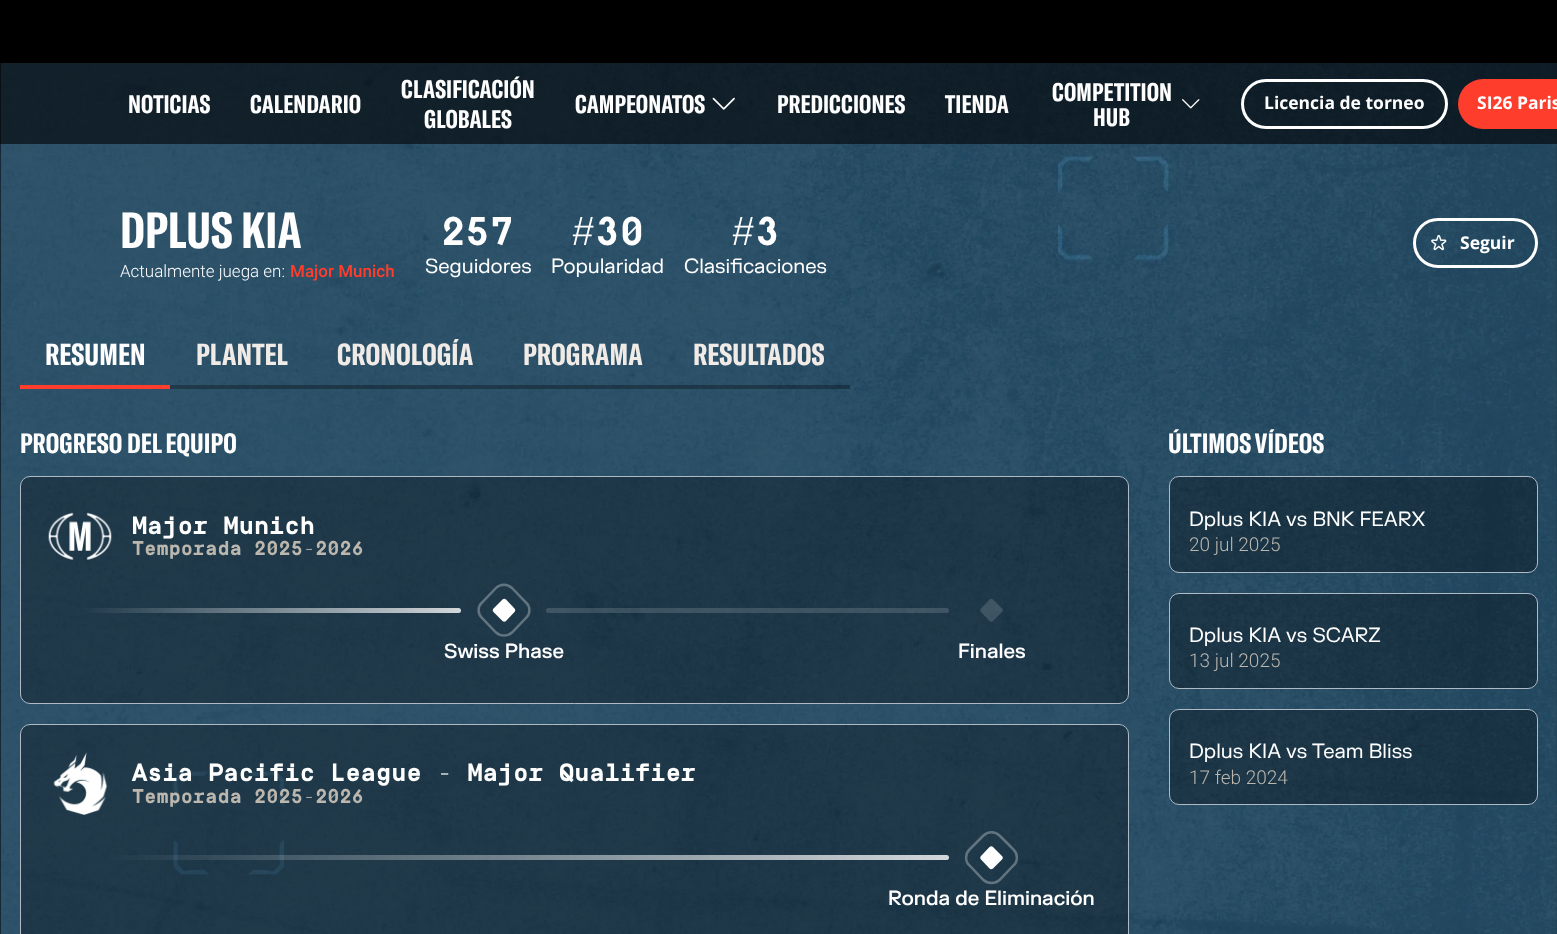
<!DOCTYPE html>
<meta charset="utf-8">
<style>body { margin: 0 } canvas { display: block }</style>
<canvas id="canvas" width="1557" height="934"></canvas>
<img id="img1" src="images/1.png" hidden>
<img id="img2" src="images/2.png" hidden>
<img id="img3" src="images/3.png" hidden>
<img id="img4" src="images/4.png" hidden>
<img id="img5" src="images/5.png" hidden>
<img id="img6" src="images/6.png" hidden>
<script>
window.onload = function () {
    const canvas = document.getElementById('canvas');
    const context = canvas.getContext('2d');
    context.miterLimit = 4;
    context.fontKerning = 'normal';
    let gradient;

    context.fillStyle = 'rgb(8, 7, 7)';
    context.fillRect(0, 0, 1557, 934);
    context.drawImage(document.getElementById('img1'), 0, 63, 1557, 871);
    context.fillStyle = 'rgb(0, 0, 0)';
    context.fillRect(0, 0, 1557, 63);
    context.fillStyle = 'rgba(0, 0, 0, 0.6)';
    context.fillRect(0, 63, 1557, 81);
    context.drawImage(document.getElementById('img2'), 712, 97, 23, 13);
    context.drawImage(document.getElementById('img3'), 1182, 99, 18, 10);
    context.beginPath();
    context.roundRect(1242.5, 80.5, 204, 47, 23.5);
    context.strokeStyle = 'rgb(254, 254, 254)';
    context.lineWidth = 3;
    context.stroke();
    context.fillStyle = 'rgb(255, 61, 44)';
    context.beginPath();
    context.roundRect(1458, 79, 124, 50, 25);
    context.fill();
    context.beginPath();
    context.roundRect(1414.5, 219.5, 122, 47, 23.5);
    context.stroke();
    context.drawImage(document.getElementById('img4'), 1431, 234, 16, 17);
    context.fillRect(20, 385, 150, 4);
    context.fillStyle = 'rgba(0, 0, 0, 0.3)';
    context.fillRect(170, 385, 143, 4);
    context.fillRect(313, 385, 186, 4);
    context.fillRect(499, 385, 170, 4);
    context.fillRect(669, 385, 181, 4);
    context.beginPath();
    context.roundRect(20.5, 476.5, 1108, 227, 9.5);
    context.fill();
    context.strokeStyle = 'rgb(176, 186, 198)';
    context.lineWidth = 1;
    context.stroke();
    context.drawImage(document.getElementById('img5'), 48, 512, 64, 48);
    gradient = context.createLinearGradient(59, 610, 461, 610);
    gradient.addColorStop(0.05, 'rgba(255, 255, 255, 0)');
    gradient.addColorStop(1, 'rgba(255, 255, 255, 0.8)');
    context.fillStyle = gradient;
    context.beginPath();
    context.roundRect(59, 608, 402, 5, 2.5);
    context.fill();
    context.fillStyle = 'rgba(255, 255, 255, 0.15)';
    context.beginPath();
    context.roundRect(546, 608, 403, 5, 2.5);
    context.fill();
    context.fillStyle = 'rgb(255, 255, 255)';
    context.beginPath();
    context.moveTo(506, 599.5);
    context.lineTo(514.5, 608.5);
    context.bezierCurveTo(515.5, 609.5, 515.5, 611, 514.5, 612);
    context.lineTo(506, 621);
    context.bezierCurveTo(505, 622, 503.5, 622, 502.5, 621);
    context.lineTo(493.5, 612);
    context.bezierCurveTo(492.5, 611, 492.5, 609.5, 493.5, 608.5);
    context.lineTo(502.5, 599.5);
    context.bezierCurveTo(503.5, 598.5, 505, 598.5, 506, 599.5);
    context.closePath();
    context.fill();
    context.beginPath();
    context.moveTo(512, 588);
    context.lineTo(526, 602.5);
    context.bezierCurveTo(530.5, 606.5, 530.5, 614, 526, 618);
    context.lineTo(512, 632.5);
    context.bezierCurveTo(507.5, 636.5, 500.5, 636.5, 496, 632.5);
    context.lineTo(482, 618);
    context.bezierCurveTo(477.5, 614, 477.5, 606.5, 482, 602.5);
    context.lineTo(496, 588);
    context.bezierCurveTo(500.5, 583.5, 507.5, 583.5, 512, 588);
    context.closePath();
    context.strokeStyle = 'rgba(255, 255, 255, 0.3)';
    context.lineWidth = 2.5;
    context.stroke();
    context.fillStyle = 'rgba(255, 255, 255, 0.15)';
    context.beginPath();
    context.moveTo(993, 599.5);
    context.lineTo(1002, 608.5);
    context.bezierCurveTo(1003, 609.5, 1003, 611, 1002, 612);
    context.lineTo(993, 621);
    context.bezierCurveTo(992, 622, 990.5, 622, 989.5, 621);
    context.lineTo(981, 612);
    context.bezierCurveTo(980, 611, 980, 609.5, 981, 608.5);
    context.lineTo(989.5, 599.5);
    context.bezierCurveTo(990.5, 598.5, 992, 598.5, 993, 599.5);
    context.closePath();
    context.fill();
    context.fillStyle = 'rgba(0, 0, 0, 0.3)';
    context.beginPath();
    context.roundRect(20.5, 724.5, 1108, 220, 9.5);
    context.fill();
    context.strokeStyle = 'rgb(176, 186, 198)';
    context.lineWidth = 1;
    context.stroke();
    context.drawImage(document.getElementById('img6'), 53, 752, 55, 63);
    gradient = context.createLinearGradient(59, 858, 949, 858);
    gradient.addColorStop(0.05, 'rgba(255, 255, 255, 0)');
    gradient.addColorStop(1, 'rgba(255, 255, 255, 0.8)');
    context.fillStyle = gradient;
    context.beginPath();
    context.roundRect(59, 855, 890, 5, 2.5);
    context.fill();
    context.fillStyle = 'rgb(255, 255, 255)';
    context.beginPath();
    context.moveTo(993, 847);
    context.lineTo(1002, 856);
    context.bezierCurveTo(1003, 857, 1003, 858.5, 1002, 859.5);
    context.lineTo(993, 868.5);
    context.bezierCurveTo(992, 869.5, 990.5, 869.5, 989.5, 868.5);
    context.lineTo(981, 859.5);
    context.bezierCurveTo(980, 858.5, 980, 857, 981, 856);
    context.lineTo(989.5, 847);
    context.bezierCurveTo(990.5, 846, 992, 846, 993, 847);
    context.closePath();
    context.fill();
    context.beginPath();
    context.moveTo(999.5, 835.5);
    context.lineTo(1013.5, 849.5);
    context.bezierCurveTo(1018, 854, 1018, 861.5, 1013.5, 865.5);
    context.lineTo(999.5, 880);
    context.bezierCurveTo(995, 884, 988, 884, 983.5, 880);
    context.lineTo(969.5, 865.5);
    context.bezierCurveTo(965, 861.5, 965, 854, 969.5, 849.5);
    context.lineTo(983.5, 835.5);
    context.bezierCurveTo(988, 831, 995, 831, 999.5, 835.5);
    context.closePath();
    context.strokeStyle = 'rgba(255, 255, 255, 0.3)';
    context.lineWidth = 2.5;
    context.stroke();
    context.fillStyle = 'rgba(0, 0, 0, 0.3)';
    context.beginPath();
    context.roundRect(1169.5, 476.5, 368, 96, 9.5);
    context.fill();
    context.strokeStyle = 'rgb(176, 186, 198)';
    context.lineWidth = 1;
    context.stroke();
    context.beginPath();
    context.roundRect(1169.5, 593.5, 368, 95, 9.5);
    context.fill();
    context.stroke();
    context.beginPath();
    context.roundRect(1169.5, 709.5, 368, 95, 9.5);
    context.fill();
    context.stroke();
    context.letterSpacing = '0.1px';
    context.font = 'bold 25px GT America';
    context.fillStyle = 'rgb(254, 254, 254)';
    context.fillText('NOTICIAS', 128, 113);
    context.fillText('CALENDARIO', 250, 113);
    context.fillText('CLASIFICACIÓN', 401, 98);
    context.fillText('GLOBALES', 424, 128);
    context.fillText('CAMPEONATOS', 575, 113);
    context.fillText('PREDICCIONES', 777, 113);
    context.fillText('TIENDA', 945, 113);
    context.fillText('COMPETITION', 1052, 101);
    context.fillText('HUB', 1093, 126);
    context.letterSpacing = '0px';
    context.font = 'bold 17.5px Open Sans';
    context.fillText('Licencia de torneo', 1264, 109);
    context.fillText('SI26 Paris', 1477, 109);
    context.letterSpacing = '0.1px';
    context.font = 'bold 50px GT America';
    context.fillText('DPLUS KIA', 120, 248);
    context.letterSpacing = '0px';
    context.font = '300 17px Roboto';
    context.fillText('Actualmente juega en:', 120, 277);
    context.font = '500 17px Roboto';
    context.fillStyle = 'rgb(255, 61, 44)';
    context.fillText('Major Munich', 290, 277);
    context.letterSpacing = '0.05px';
    context.font = 'bold 40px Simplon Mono';
    context.fillStyle = 'rgb(254, 254, 254)';
    context.fillText('257', 441, 245);
    context.fillText('#30', 571, 245);
    context.fillText('#3', 731, 245);
    context.letterSpacing = '0px';
    context.font = '20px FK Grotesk';
    context.fillText('Seguidores', 425, 273);
    context.fillText('Popularidad', 551, 273);
    context.fillText('Clasificaciones', 684, 273);
    context.font = 'bold 17.5px Open Sans';
    context.fillText('Seguir', 1460, 249);
    context.letterSpacing = '0.1px';
    context.font = 'bold 30px GT America';
    context.fillText('RESUMEN', 45, 365);
    context.fillStyle = 'rgb(240, 235, 230)';
    context.fillText('PLANTEL', 196, 365);
    context.fillText('CRONOLOGÍA', 337, 365);
    context.fillText('PROGRAMA', 523, 365);
    context.fillText('RESULTADOS', 693, 365);
    context.font = 'bold 27.5px GT America';
    context.fillStyle = 'rgb(254, 254, 254)';
    context.fillText('PROGRESO DEL EQUIPO', 20, 453);
    context.letterSpacing = '0.05px';
    context.font = 'bold 25px Simplon Mono';
    context.fillText('Major Munich', 132, 534);
    context.font = 'bold 20px Simplon Mono';
    context.fillStyle = 'rgb(187, 183, 175)';
    context.fillText('Temporada 2025-2026', 132, 555);
    context.letterSpacing = '0px';
    context.font = '500 20px FK Grotesk';
    context.fillStyle = 'rgb(254, 254, 254)';
    context.fillText('Swiss Phase', 444, 658);
    context.fillText('Finales', 958, 658);
    context.letterSpacing = '0.05px';
    context.font = 'bold 25px Simplon Mono';
    context.fillText('Asia Pacific League - Major Qualifier', 132, 781);
    context.font = 'bold 20px Simplon Mono';
    context.fillStyle = 'rgb(187, 183, 175)';
    context.fillText('Temporada 2025-2026', 132, 803);
    context.letterSpacing = '0px';
    context.font = '500 20px FK Grotesk';
    context.fillStyle = 'rgb(254, 254, 254)';
    context.fillText('Ronda de Eliminación', 888, 905);
    context.letterSpacing = '0.1px';
    context.font = 'bold 27.5px GT America';
    context.fillText('ÚLTIMOS VÍDEOS', 1168, 453);
    context.letterSpacing = '0px';
    context.font = '20px FK Grotesk';
    context.fillText('Dplus KIA', 1189, 526);
    context.fillText('vs BNK FEARX', 1286, 526);
    context.font = '300 19px Roboto';
    context.fillStyle = 'rgb(187, 183, 175)';
    context.fillText('20 jul 2025', 1189, 551);
    context.font = '20px FK Grotesk';
    context.fillStyle = 'rgb(254, 254, 254)';
    context.fillText('Dplus KIA', 1189, 642);
    context.fillText('vs SCARZ', 1286, 642);
    context.font = '300 19px Roboto';
    context.fillStyle = 'rgb(187, 183, 175)';
    context.fillText('13 jul 2025', 1189, 667);
    context.font = '20px FK Grotesk';
    context.fillStyle = 'rgb(254, 254, 254)';
    context.fillText('Dplus KIA', 1189, 758);
    context.fillText('vs Team Bliss', 1286, 758);
    context.font = '300 19px Roboto';
    context.fillStyle = 'rgb(187, 183, 175)';
    context.fillText('17 feb 2024', 1189, 784);
};
</script>
